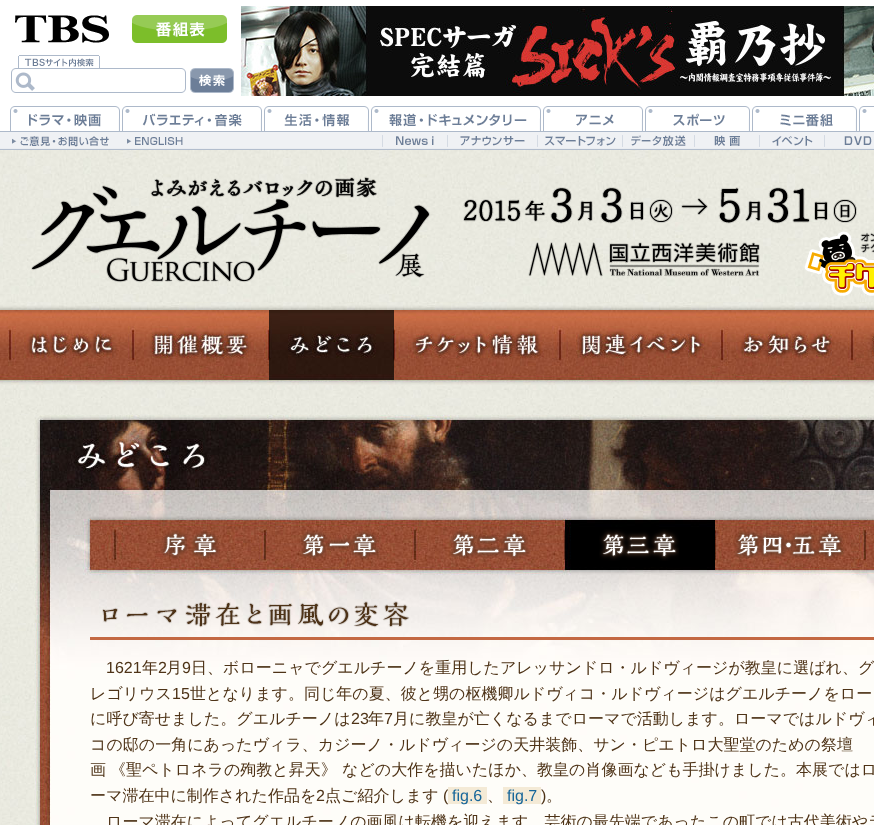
<!DOCTYPE html>
<meta charset="utf-8">
<style>body { margin: 0 } canvas { display: block }</style>
<canvas id="canvas" width="874" height="825"></canvas>
<img id="img1" src="images/1.png" hidden>
<img id="img2" src="images/2.png" hidden>
<img id="img3" src="images/3.png" hidden>
<img id="img4" src="images/4.png" hidden>
<img id="img5" src="images/5.png" hidden>
<img id="img6" src="images/6.png" hidden>
<img id="img7" src="images/7.png" hidden>
<img id="img8" src="images/8.png" hidden>
<img id="img9" src="images/9.png" hidden>
<img id="img10" src="images/10.png" hidden>
<img id="img11" src="images/11.png" hidden>
<img id="img12" src="images/12.png" hidden>
<img id="img13" src="images/13.png" hidden>
<img id="img14" src="images/14.png" hidden>
<img id="img15" src="images/15.png" hidden>
<img id="img16" src="images/16.png" hidden>
<img id="img17" src="images/17.png" hidden>
<img id="img18" src="images/18.png" hidden>
<img id="img19" src="images/19.png" hidden>
<img id="img20" src="images/20.png" hidden>
<script>
window.onload = function () {
    const canvas = document.getElementById('canvas');
    const context = canvas.getContext('2d');
    context.miterLimit = 4;
    context.fontKerning = 'normal';

    context.fillStyle = 'rgb(255, 255, 255)';
    context.fillRect(0, 0, 874, 825);
    context.drawImage(document.getElementById('img1'), 0, 131, 874, 19);
    context.drawImage(document.getElementById('img2'), 241, 6, 633, 90);
    context.drawImage(document.getElementById('img3'), 15, 15, 212, 28);
    context.drawImage(document.getElementById('img4'), 11, 55, 175, 38);
    context.drawImage(document.getElementById('img5'), 190, 68, 44, 25);
    context.drawImage(document.getElementById('img6'), 10, 106, 864, 41);
    context.drawImage(document.getElementById('img7'), 0, 385, 874, 30);
    context.drawImage(document.getElementById('img8'), 0, 150, 874, 235);
    context.drawImage(document.getElementById('img9'), 31, 176, 843, 120);
    context.drawImage(document.getElementById('img10'), 0, 310, 874, 70);
    context.drawImage(document.getElementById('img11'), 269, 310, 125, 70);
    context.drawImage(document.getElementById('img12'), 0, 415, 35, 410);
    context.drawImage(document.getElementById('img13'), 35, 670, 839, 155);
    context.drawImage(document.getElementById('img14'), 35, 415, 839, 255);
    context.drawImage(document.getElementById('img15'), 160, 530, 60, 30);
    context.drawImage(document.getElementById('img16'), 299, 530, 81, 30);
    context.drawImage(document.getElementById('img17'), 449, 530, 81, 30);
    context.drawImage(document.getElementById('img18'), 599, 529, 80, 32);
    context.drawImage(document.getElementById('img19'), 734, 530, 111, 30);
    context.fillStyle = 'rgb(195, 104, 66)';
    context.fillRect(90, 637, 784, 3);
    context.drawImage(document.getElementById('img20'), 102, 601, 308, 27);
    context.fillStyle = 'rgb(244, 234, 214)';
    context.fillRect(503, 787, 38, 17);
    context.font = '16px Liberation Sans';
    context.fillStyle = 'rgb(78, 51, 23)';
    context.fillText('1621', 106, 673);
    context.font = '500 16px WenQuanYi Zen Hei';
    context.fillText('年', 142, 673);
    context.font = '16px Liberation Sans';
    context.fillText('2', 158, 673);
    context.font = '500 16px WenQuanYi Zen Hei';
    context.fillText('月', 166, 673);
    context.font = '16px Liberation Sans';
    context.fillText('9', 182, 673);
    context.font = '500 16px WenQuanYi Zen Hei';
    context.fillText('日、ボローニャでグエルチーノを重用したアレッサンドロ・ルドヴィージが教皇に選ばれ、グ', 191, 673);
    context.fillText('レゴリウス', 90, 699);
    context.font = '16px Liberation Sans';
    context.fillText('15', 172, 699);
    context.font = '500 16px WenQuanYi Zen Hei';
    context.fillText('世となります。同じ年の夏、彼と甥の枢機卿ルドヴィコ・ルドヴィージはグエルチーノをロー', 190, 699);
    context.fillText('に呼び寄せました。グエルチーノは', 90, 724);
    context.font = '16px Liberation Sans';
    context.fillText('23', 351, 724);
    context.font = '500 16px WenQuanYi Zen Hei';
    context.fillText('年', 368, 724);
    context.font = '16px Liberation Sans';
    context.fillText('7', 384, 724);
    context.font = '500 16px WenQuanYi Zen Hei';
    context.fillText('月に教皇が亡くなるまでローマで活動します。ローマではルドヴィ', 393, 724);
    context.fillText('コの邸の一角にあったヴィラ、カジーノ・ルドヴィージの天井装飾、サン・ピエトロ大聖堂のための祭壇', 90, 750);
    context.fillText('画', 90, 775);
    context.fillText('《聖ペトロネラの殉教と昇天》', 110, 775);
    context.fillText('などの大作を描いたほか、教皇の肖像画なども手掛けました。本展ではロ', 342, 775);
    context.fillText('ーマ滞在中に制作された作品を', 90, 801);
    context.font = '16px Liberation Sans';
    context.fillText('2', 316, 801);
    context.font = '500 16px WenQuanYi Zen Hei';
    context.fillText('点ご紹介します', 325, 801);
    context.font = '16px Liberation Sans';
    context.fillText('(', 443, 801);
    context.fillStyle = 'rgb(244, 234, 214)';
    context.fillRect(448, 787, 39, 17);
    context.fillStyle = 'rgb(23, 102, 153)';
    context.fillText('fig.6', 452, 801);
    context.font = '500 16px WenQuanYi Zen Hei';
    context.fillStyle = 'rgb(78, 51, 23)';
    context.fillText('、', 487, 801);
    context.font = '16px Liberation Sans';
    context.fillStyle = 'rgb(23, 102, 153)';
    context.fillText('fig.7', 507, 801);
    context.fillStyle = 'rgb(78, 51, 23)';
    context.fillText(')', 541, 801);
    context.font = '500 16px WenQuanYi Zen Hei';
    context.fillText('。', 546, 801);
    context.fillText('ローマ滞在によってグエルチーノの画風は転機を迎えます。芸術の最先端であったこの町では古代美術やラ', 106, 827);
};
</script>
